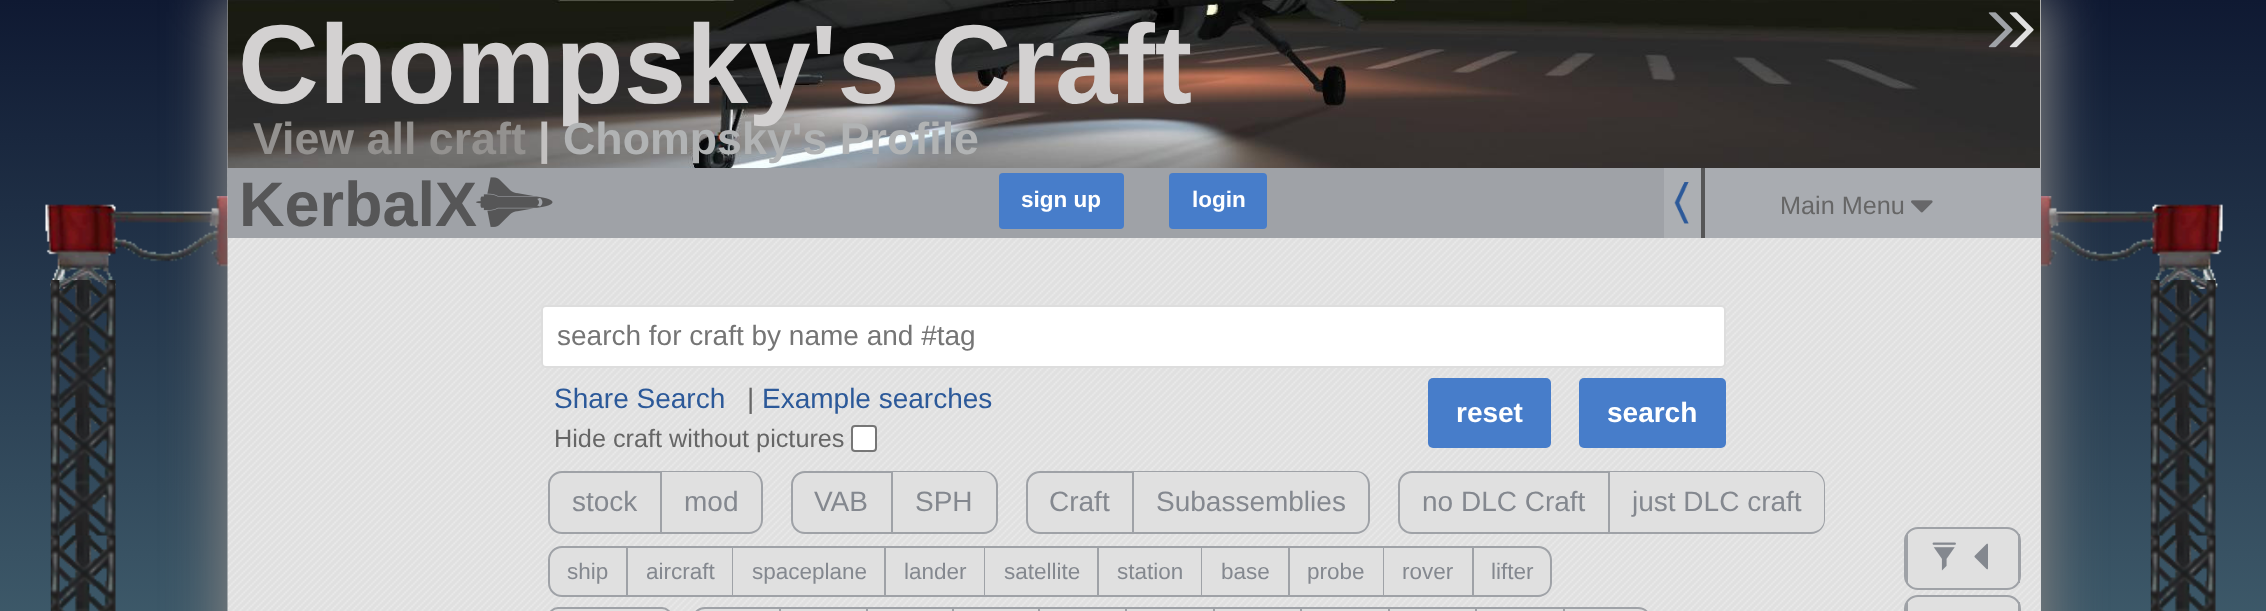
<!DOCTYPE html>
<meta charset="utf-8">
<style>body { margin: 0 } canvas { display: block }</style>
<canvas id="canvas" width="2266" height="611"></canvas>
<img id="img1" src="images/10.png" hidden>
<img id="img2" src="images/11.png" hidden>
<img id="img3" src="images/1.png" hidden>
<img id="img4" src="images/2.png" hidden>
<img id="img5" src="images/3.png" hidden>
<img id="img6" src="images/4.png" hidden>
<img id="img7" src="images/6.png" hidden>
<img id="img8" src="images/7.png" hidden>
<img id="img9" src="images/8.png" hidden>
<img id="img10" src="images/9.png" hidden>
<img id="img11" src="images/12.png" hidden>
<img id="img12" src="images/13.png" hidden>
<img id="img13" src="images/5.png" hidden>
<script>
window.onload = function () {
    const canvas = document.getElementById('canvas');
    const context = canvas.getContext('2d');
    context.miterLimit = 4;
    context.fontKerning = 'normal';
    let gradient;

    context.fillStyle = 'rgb(255, 255, 255)';
    context.fillRect(0, 0, 2266, 611);
    gradient = context.createLinearGradient(1133, 0, 1133, 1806);
    gradient.addColorStop(0, 'rgb(15, 25, 50)');
    gradient.addColorStop(1, 'rgb(149, 211, 210)');
    context.fillStyle = gradient;
    context.fillRect(0, 0, 2266, 611);
    context.drawImage(document.getElementById('img1'), 45, 196, 183, 93);
    context.drawImage(document.getElementById('img2'), 2041, 196, 182, 93);
    context.fillStyle = 'rgb(128, 128, 128)';
    context.filter = 'blur(26px)';
    context.beginPath();
    context.rect(219, -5, 1830, 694);
    context.fill();
    context.filter = 'none';
    context.fillStyle = 'rgb(224, 224, 224)';
    context.fillRect(2040, 238, 1, 373);
    context.drawImage(document.getElementById('img3'), 227, 0, 1813, 611);
    context.fillRect(2040, 0, 1, 168);
    context.drawImage(document.getElementById('img4'), 227, 0, 1814, 168);
    context.drawImage(document.getElementById('img5'), 1988, 12, 25, 36);
    context.drawImage(document.getElementById('img6'), 2009, 12, 25, 36);
    context.fillStyle = 'rgb(159, 162, 167)';
    context.fillRect(228, 168, 1436, 70);
    context.fillStyle = 'rgb(71, 125, 202)';
    context.beginPath();
    context.roundRect(999, 173, 125, 56, 4);
    context.fill();
    context.beginPath();
    context.roundRect(1169, 173, 98, 56, 4);
    context.fill();
    context.fillStyle = 'rgb(172, 175, 179)';
    context.fillRect(1664, 168, 37, 70);
    context.fillStyle = 'rgb(86, 86, 87)';
    context.fillRect(1701, 168, 4, 70);
    context.drawImage(document.getElementById('img7'), 1674, 182, 15, 42);
    context.fillStyle = 'rgb(169, 172, 177)';
    context.fillRect(1705, 168, 336, 70);
    context.drawImage(document.getElementById('img8'), 1911, 200, 22, 13);
    context.fillStyle = 'rgb(255, 255, 255)';
    context.beginPath();
    context.roundRect(542, 306, 1183, 61, 4);
    context.fill();
    context.strokeStyle = 'rgb(221, 221, 221)';
    context.lineWidth = 2;
    context.stroke();
    context.beginPath();
    context.roundRect(852, 426, 24, 25, 3);
    context.fill();
    context.strokeStyle = 'rgb(118, 118, 118)';
    context.stroke();
    context.fillStyle = 'rgb(71, 125, 202)';
    context.beginPath();
    context.roundRect(1428, 378, 123, 70, 5);
    context.fill();
    context.beginPath();
    context.roundRect(1579, 378, 147, 70, 5);
    context.fill();
    context.fillStyle = 'rgb(224, 224, 224)';
    context.beginPath();
    context.roundRect(549, 472, 112, 61, [13, 0, 0, 13]);
    context.fill();
    context.strokeStyle = 'rgb(159, 162, 167)';
    context.stroke();
    context.beginPath();
    context.roundRect(662, 471, 101, 63, [0, 14, 14, 0]);
    context.fill();
    context.fillStyle = 'rgb(159, 162, 167)';
    context.beginPath();
    context.moveTo(662, 471);
    context.lineTo(749, 471);
    context.bezierCurveTo(757, 471, 763, 477, 763, 485);
    context.lineTo(763, 520);
    context.bezierCurveTo(763, 527, 757, 534, 749, 534);
    context.lineTo(662, 534);
    context.closePath();
    context.moveTo(662, 472);
    context.lineTo(749, 472);
    context.bezierCurveTo(756, 472, 761, 478, 761, 485);
    context.lineTo(761, 520);
    context.bezierCurveTo(761, 527, 756, 532, 749, 532);
    context.lineTo(662, 532);
    context.closePath();
    context.fill('evenodd');
    context.fillStyle = 'rgb(224, 224, 224)';
    context.beginPath();
    context.roundRect(792, 472, 100, 61, [13, 0, 0, 13]);
    context.fill();
    context.stroke();
    context.beginPath();
    context.roundRect(893, 471, 105, 63, [0, 14, 14, 0]);
    context.fill();
    context.fillStyle = 'rgb(159, 162, 167)';
    context.beginPath();
    context.moveTo(892, 471);
    context.lineTo(984, 471);
    context.bezierCurveTo(991, 471, 998, 477, 998, 485);
    context.lineTo(998, 520);
    context.bezierCurveTo(998, 527, 991, 534, 984, 534);
    context.lineTo(892, 534);
    context.closePath();
    context.moveTo(892, 472);
    context.lineTo(984, 472);
    context.bezierCurveTo(990, 472, 996, 478, 996, 485);
    context.lineTo(996, 520);
    context.bezierCurveTo(996, 527, 990, 532, 984, 532);
    context.lineTo(892, 532);
    context.closePath();
    context.fill('evenodd');
    context.fillStyle = 'rgb(224, 224, 224)';
    context.beginPath();
    context.roundRect(1027, 472, 106, 61, [13, 0, 0, 13]);
    context.fill();
    context.stroke();
    context.beginPath();
    context.roundRect(1134, 471, 236, 63, [0, 14, 14, 0]);
    context.fill();
    context.fillStyle = 'rgb(159, 162, 167)';
    context.beginPath();
    context.moveTo(1134, 471);
    context.lineTo(1356, 471);
    context.bezierCurveTo(1364, 471, 1370, 477, 1370, 485);
    context.lineTo(1370, 520);
    context.bezierCurveTo(1370, 527, 1364, 534, 1356, 534);
    context.lineTo(1134, 534);
    context.closePath();
    context.moveTo(1134, 472);
    context.lineTo(1356, 472);
    context.bezierCurveTo(1363, 472, 1368, 478, 1368, 485);
    context.lineTo(1368, 520);
    context.bezierCurveTo(1368, 527, 1363, 532, 1356, 532);
    context.lineTo(1134, 532);
    context.closePath();
    context.fill('evenodd');
    context.fillStyle = 'rgb(224, 224, 224)';
    context.beginPath();
    context.roundRect(1399, 472, 210, 61, [13, 0, 0, 13]);
    context.fill();
    context.stroke();
    context.beginPath();
    context.roundRect(1610, 471, 215, 63, [0, 14, 14, 0]);
    context.fill();
    context.fillStyle = 'rgb(159, 162, 167)';
    context.beginPath();
    context.moveTo(1610, 471);
    context.lineTo(1811, 471);
    context.bezierCurveTo(1819, 471, 1825, 477, 1825, 485);
    context.lineTo(1825, 520);
    context.bezierCurveTo(1825, 527, 1819, 534, 1811, 534);
    context.lineTo(1610, 534);
    context.closePath();
    context.moveTo(1610, 472);
    context.lineTo(1811, 472);
    context.bezierCurveTo(1818, 472, 1824, 478, 1824, 485);
    context.lineTo(1824, 520);
    context.bezierCurveTo(1824, 527, 1818, 532, 1811, 532);
    context.lineTo(1610, 532);
    context.closePath();
    context.fill('evenodd');
    context.fillStyle = 'rgb(224, 224, 224)';
    context.beginPath();
    context.roundRect(549, 547, 78, 49, [13, 0, 0, 13]);
    context.fill();
    context.stroke();
    context.fillRect(628, 548, 104, 47);
    context.fillStyle = 'rgb(159, 162, 167)';
    context.fillRect(628, 546, 846, 2);
    context.fillRect(732, 546, 1, 51);
    context.fillRect(628, 595, 105, 2);
    context.fillStyle = 'rgb(224, 224, 224)';
    context.fillRect(733, 548, 151, 47);
    context.fillStyle = 'rgb(159, 162, 167)';
    context.fillRect(884, 546, 2, 51);
    context.fillRect(733, 595, 153, 2);
    context.fillStyle = 'rgb(224, 224, 224)';
    context.fillRect(886, 548, 98, 47);
    context.fillStyle = 'rgb(159, 162, 167)';
    context.fillRect(984, 546, 1, 51);
    context.fillRect(886, 595, 99, 2);
    context.fillStyle = 'rgb(224, 224, 224)';
    context.fillRect(985, 548, 112, 47);
    context.fillStyle = 'rgb(159, 162, 167)';
    context.fillRect(1097, 546, 2, 51);
    context.fillRect(985, 595, 114, 2);
    context.fillStyle = 'rgb(224, 224, 224)';
    context.fillRect(1099, 548, 102, 47);
    context.fillStyle = 'rgb(159, 162, 167)';
    context.fillRect(1201, 546, 1, 51);
    context.fillRect(1099, 595, 103, 2);
    context.fillStyle = 'rgb(224, 224, 224)';
    context.fillRect(1202, 548, 86, 47);
    context.fillStyle = 'rgb(159, 162, 167)';
    context.fillRect(1288, 546, 2, 51);
    context.fillRect(1202, 595, 88, 2);
    context.fillStyle = 'rgb(224, 224, 224)';
    context.fillRect(1290, 548, 93, 47);
    context.fillStyle = 'rgb(159, 162, 167)';
    context.fillRect(1383, 546, 1, 51);
    context.fillRect(1290, 595, 94, 2);
    context.fillStyle = 'rgb(224, 224, 224)';
    context.fillRect(1384, 548, 88, 47);
    context.fillStyle = 'rgb(159, 162, 167)';
    context.fillRect(1472, 546, 2, 51);
    context.fillRect(1384, 595, 90, 2);
    context.fillStyle = 'rgb(224, 224, 224)';
    context.beginPath();
    context.roundRect(1474, 546, 78, 51, [0, 14, 14, 0]);
    context.fill();
    context.fillStyle = 'rgb(159, 162, 167)';
    context.beginPath();
    context.moveTo(1474, 546);
    context.lineTo(1538, 546);
    context.bezierCurveTo(1546, 546, 1552, 552, 1552, 560);
    context.lineTo(1552, 583);
    context.bezierCurveTo(1552, 590, 1546, 597, 1538, 597);
    context.lineTo(1474, 597);
    context.closePath();
    context.moveTo(1474, 548);
    context.lineTo(1538, 548);
    context.bezierCurveTo(1545, 548, 1550, 553, 1550, 560);
    context.lineTo(1550, 583);
    context.bezierCurveTo(1550, 590, 1545, 595, 1538, 595);
    context.lineTo(1474, 595);
    context.closePath();
    context.fill('evenodd');
    context.fillStyle = 'rgb(224, 224, 224)';
    context.beginPath();
    context.roundRect(549, 608, 122, 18, 13);
    context.fill();
    context.stroke();
    context.beginPath();
    context.moveTo(705, 608);
    context.lineTo(780, 608);
    context.lineTo(780, 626);
    context.lineTo(705, 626);
    context.bezierCurveTo(698, 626, 692, 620, 692, 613);
    context.lineTo(692, 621);
    context.bezierCurveTo(692, 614, 698, 608, 705, 608);
    context.closePath();
    context.fill();
    context.stroke();
    context.fillRect(781, 609, 784, 2);
    context.fillStyle = 'rgb(159, 162, 167)';
    context.fillRect(781, 607, 784, 2);
    context.fillRect(866, 607, 2, 4);
    context.fillRect(952, 607, 2, 4);
    context.fillRect(1038, 607, 2, 4);
    context.fillRect(1125, 607, 2, 4);
    context.fillRect(1213, 607, 2, 4);
    context.fillRect(1300, 607, 2, 4);
    context.fillRect(1388, 607, 2, 4);
    context.fillRect(1475, 607, 2, 4);
    context.fillRect(1563, 607, 2, 4);
    context.fillStyle = 'rgb(224, 224, 224)';
    context.beginPath();
    context.moveTo(1565, 607);
    context.lineTo(1638, 607);
    context.bezierCurveTo(1645.5, 607, 1652, 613.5, 1652, 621);
    context.lineTo(1652, 611);
    context.bezierCurveTo(1652, 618.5, 1645.5, 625, 1638, 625);
    context.lineTo(1565, 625);
    context.closePath();
    context.fill();
    context.fillStyle = 'rgb(159, 162, 167)';
    context.beginPath();
    context.moveTo(1564, 607);
    context.lineTo(1638, 607);
    context.bezierCurveTo(1646, 607, 1652, 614, 1652, 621);
    context.lineTo(1652, 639);
    context.bezierCurveTo(1652, 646, 1646, 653, 1638, 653);
    context.lineTo(1564, 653);
    context.closePath();
    context.moveTo(1564, 609);
    context.lineTo(1638, 609);
    context.bezierCurveTo(1645, 609, 1650, 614, 1650, 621);
    context.lineTo(1650, 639);
    context.bezierCurveTo(1650, 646, 1645, 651, 1638, 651);
    context.lineTo(1564, 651);
    context.closePath();
    context.fill('evenodd');
    context.fillStyle = 'rgb(224, 224, 224)';
    context.beginPath();
    context.moveTo(1918, 528);
    context.lineTo(2007, 528);
    context.bezierCurveTo(2013, 528, 2018, 534, 2018, 541);
    context.lineTo(2018, 576);
    context.bezierCurveTo(2018, 583, 2013, 588, 2007, 588);
    context.lineTo(1918, 588);
    context.bezierCurveTo(1912, 588, 1908, 583, 1908, 576);
    context.lineTo(1908, 541);
    context.bezierCurveTo(1908, 534, 1912, 528, 1918, 528);
    context.closePath();
    context.fill();
    context.beginPath();
    context.roundRect(1905, 528, 115, 61, 13);
    context.stroke();
    context.fillStyle = 'rgb(159, 162, 167)';
    context.fillRect(2018, 534, 2, 49);
    context.fillRect(1906, 534, 2, 49);
    context.drawImage(document.getElementById('img9'), 1932, 542, 24, 29);
    context.drawImage(document.getElementById('img10'), 1974, 543, 14, 27);
    context.fillStyle = 'rgb(224, 224, 224)';
    context.beginPath();
    context.moveTo(1918, 597);
    context.lineTo(2007, 597);
    context.bezierCurveTo(2013, 597, 2018, 602, 2018, 609);
    context.lineTo(2018, 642);
    context.bezierCurveTo(2018, 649, 2013, 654, 2007, 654);
    context.lineTo(1918, 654);
    context.bezierCurveTo(1912, 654, 1908, 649, 1908, 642);
    context.lineTo(1908, 609);
    context.bezierCurveTo(1908, 602, 1912, 597, 1918, 597);
    context.closePath();
    context.fill();
    context.beginPath();
    context.roundRect(1905, 596, 115, 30, 13);
    context.stroke();
    context.fillStyle = 'rgb(159, 162, 167)';
    context.fillRect(2018, 602, 2, 9);
    context.fillRect(1906, 602, 2, 9);
    context.drawImage(document.getElementById('img11'), 50, 280, 66, 331);
    context.drawImage(document.getElementById('img12'), 2150, 280, 66, 331);
    context.font = 'bold 112px Liberation Sans';
    context.fillStyle = 'rgb(211, 209, 209)';
    context.fillText('Chompsky\'s Craft', 238, 103);
    context.font = 'bold 44.75px Liberation Sans';
    context.fillStyle = 'rgb(147, 145, 143)';
    context.fillText('View all craft', 253, 154);
    context.fillStyle = 'rgb(195, 193, 192)';
    context.fillText('|', 538, 154);
    context.fillStyle = 'rgb(177, 179, 180)';
    context.fillText('Chompsky\'s Profile', 563, 154);
    context.font = 'bold 63px Liberation Sans';
    context.fillStyle = 'rgb(86, 86, 87)';
    context.fillText('KerbalX', 239, 226);
    context.drawImage(document.getElementById('img13'), 476, 177, 77, 50);
    context.font = 'bold 22.5px Liberation Sans';
    context.fillStyle = 'rgb(255, 255, 255)';
    context.fillText('sign up', 1021, 207);
    context.fillText('login', 1192, 207);
    context.font = '25.25px Liberation Sans';
    context.fillStyle = 'rgb(102, 102, 102)';
    context.fillText('Main Menu', 1780, 214);
    context.font = '28px Liberation Sans';
    context.fillStyle = 'rgb(117, 117, 117)';
    context.fillText('search for craft by name and #tag', 557, 345);
    context.fillStyle = 'rgb(44, 89, 153)';
    context.fillText('Share Search', 554, 408);
    context.fillStyle = 'rgb(102, 102, 102)';
    context.fillText('|', 747, 408);
    context.fillStyle = 'rgb(44, 89, 153)';
    context.fillText('Example searches', 762, 408);
    context.font = '25.25px Liberation Sans';
    context.fillStyle = 'rgb(102, 102, 102)';
    context.fillText('Hide craft without pictures', 554, 447);
    context.font = 'bold 28px Liberation Sans';
    context.fillStyle = 'rgb(255, 255, 255)';
    context.fillText('reset', 1456, 422);
    context.fillText('search', 1607, 422);
    context.font = '28px Liberation Sans';
    context.fillStyle = 'rgb(132, 136, 143)';
    context.fillText('stock', 572, 511);
    context.fillText('mod', 684, 511);
    context.fillText('VAB', 814, 511);
    context.fillText('SPH', 915, 511);
    context.fillText('Craft', 1049, 511);
    context.fillText('Subassemblies', 1156, 511);
    context.fillText('no DLC Craft', 1422, 511);
    context.fillText('just DLC craft', 1632, 511);
    context.font = '22.5px Liberation Sans';
    context.fillText('ship', 567, 579);
    context.fillText('aircraft', 646, 579);
    context.fillText('spaceplane', 752, 579);
    context.fillText('lander', 904, 579);
    context.fillText('satellite', 1004, 579);
    context.fillText('station', 1117, 579);
    context.fillText('base', 1221, 579);
    context.fillText('probe', 1307, 579);
    context.fillText('rover', 1402, 579);
    context.fillText('lifter', 1491, 579);
};
</script>
